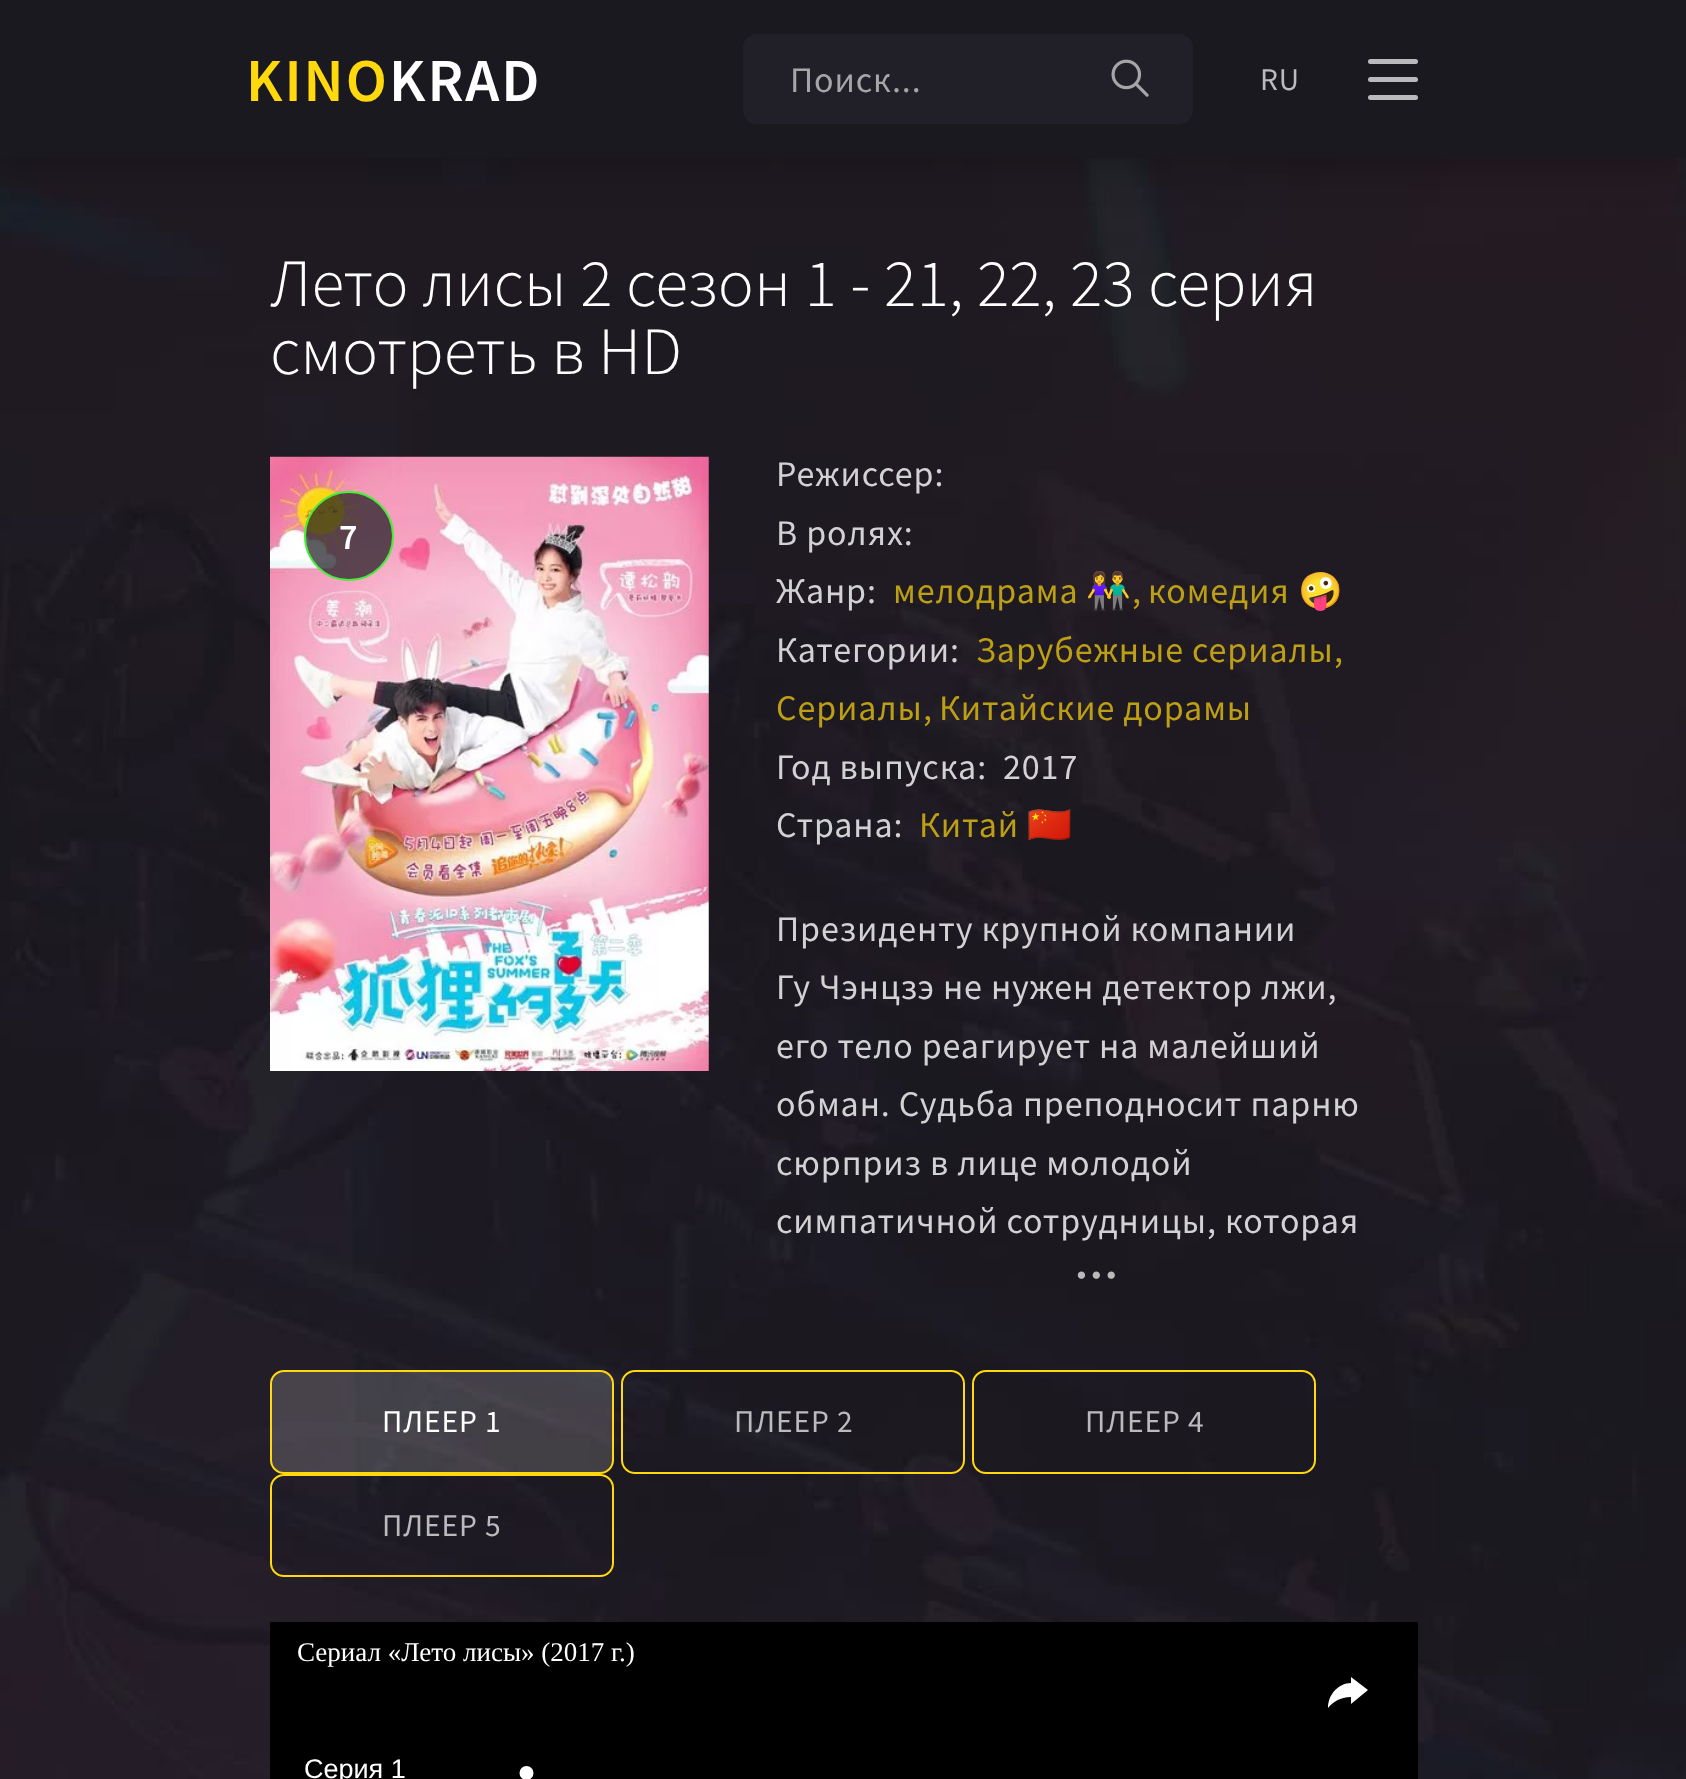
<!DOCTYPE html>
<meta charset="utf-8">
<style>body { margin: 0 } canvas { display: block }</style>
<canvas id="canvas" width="1686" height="1779"></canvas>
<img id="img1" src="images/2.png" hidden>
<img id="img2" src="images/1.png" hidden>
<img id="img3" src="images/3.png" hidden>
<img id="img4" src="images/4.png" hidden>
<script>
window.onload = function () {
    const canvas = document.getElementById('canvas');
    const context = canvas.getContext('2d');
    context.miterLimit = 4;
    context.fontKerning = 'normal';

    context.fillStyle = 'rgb(255, 255, 255)';
    context.fillRect(0, 0, 1686, 1779);
    context.drawImage(document.getElementById('img1'), 0, 158, 1686, 1621);
    context.fillStyle = 'rgba(0, 0, 0, 0.3)';
    context.filter = 'blur(22.5px)';
    context.beginPath();
    context.rect(0, 0, 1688, 158);
    context.fill();
    context.filter = 'none';
    context.fillStyle = 'rgb(26, 25, 31)';
    context.fillRect(0, 0, 1686, 158);
    context.fillStyle = 'rgb(33, 32, 40)';
    context.beginPath();
    context.roundRect(743, 34, 450, 90, 14);
    context.fill();
    context.drawImage(document.getElementById('img2'), 1111, 59, 38, 38);
    context.fillStyle = 'rgb(186, 186, 188)';
    context.beginPath();
    context.roundRect(1368, 59, 50, 5, 2.5);
    context.fill();
    context.beginPath();
    context.roundRect(1368, 77, 50, 5, 2.5);
    context.fill();
    context.beginPath();
    context.roundRect(1368, 95, 50, 5, 2.5);
    context.fill();
    context.drawImage(document.getElementById('img3'), 270, 456, 439, 615);
    context.fillStyle = 'rgba(26, 25, 31, 0.7)';
    context.beginPath();
    context.arc(349, 536, 44, 0, 2 * Math.PI);
    context.fill();
    context.strokeStyle = 'rgb(72, 238, 59)';
    context.lineWidth = 2;
    context.stroke();
    context.drawImage(document.getElementById('img4'), 1077, 1271, 38, 8);
    context.fillStyle = 'rgba(255, 255, 255, 0.17)';
    context.beginPath();
    context.roundRect(271, 1371, 342, 102, 13);
    context.fill();
    context.strokeStyle = 'rgb(255, 216, 14)';
    context.stroke();
    context.beginPath();
    context.roundRect(622, 1371, 342, 102, 13);
    context.stroke();
    context.beginPath();
    context.roundRect(973, 1371, 342, 102, 13);
    context.stroke();
    context.beginPath();
    context.roundRect(271, 1475, 342, 101, 13);
    context.stroke();
    context.fillStyle = 'rgb(0, 0, 0)';
    context.fillRect(270, 1622, 1148, 157);
    context.fillStyle = 'rgb(255, 255, 255)';
    context.beginPath();
    context.moveTo(1351, 1704);
    context.lineTo(1351, 1697);
    context.bezierCurveTo(1340, 1697, 1333, 1702, 1328, 1708);
    context.bezierCurveTo(1328, 1694, 1339, 1683, 1351, 1683);
    context.lineTo(1351, 1677);
    context.lineTo(1368, 1690);
    context.closePath();
    context.fill();
    context.beginPath();
    context.arc(526.5, 1773, 7, 0, 2 * Math.PI);
    context.fill();
    context.letterSpacing = '2px';
    context.font = '600 61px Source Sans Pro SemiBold';
    context.fillStyle = 'rgb(255, 216, 13)';
    context.fillText('KINO', 246, 101);
    context.fillStyle = 'rgb(255, 255, 255)';
    context.fillText('KRAD', 389, 101);
    context.letterSpacing = '0.9px';
    context.font = '36px Source Sans Pro';
    context.fillStyle = 'rgb(166, 166, 169)';
    context.fillText('Поиск...', 790, 92);
    context.font = '31.5px Source Sans Pro';
    context.fillStyle = 'rgb(187, 186, 189)';
    context.fillText('RU', 1260, 90);
    context.letterSpacing = '0px';
    context.font = '300 67.5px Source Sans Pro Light';
    context.fillStyle = 'rgb(255, 255, 255)';
    context.fillText('Лето лисы 2 сезон 1 - 21, 22, 23 серия', 270, 306);
    context.fillText('смотреть в HD', 270, 374);
    context.letterSpacing = '0.9px';
    context.font = '600 36px Source Sans Pro SemiBold';
    context.fillText('7', 339, 549);
    context.font = '36px Source Sans Pro';
    context.fillStyle = 'rgb(210, 209, 211)';
    context.fillText('Режиссер:', 776, 486);
    context.fillText('В ролях:', 776, 545);
    context.fillText('Жанр:', 776, 603);
    context.fillStyle = 'rgb(188, 159, 20)';
    context.fillText('мелодрама', 893, 603);
    context.font = '36px Noto Color Emoji';
    context.fillText('👫', 1086, 603);
    context.font = '36px Source Sans Pro';
    context.fillText(',', 1132, 603);
    context.fillText('комедия', 1148, 603);
    context.font = '36px Noto Color Emoji';
    context.fillText('🤪', 1298, 603);
    context.font = '36px Source Sans Pro';
    context.fillStyle = 'rgb(210, 209, 211)';
    context.fillText('Категории:', 776, 662);
    context.fillStyle = 'rgb(188, 159, 20)';
    context.fillText('Зарубежные сериалы', 976, 662);
    context.fillText(',', 1334, 662);
    context.fillText('Сериалы', 776, 720);
    context.fillText(',', 923, 720);
    context.fillText('Китайские дорамы', 939, 720);
    context.fillStyle = 'rgb(210, 209, 211)';
    context.fillText('Год выпуска:', 776, 779);
    context.fillText('2017', 1003, 779);
    context.fillText('Страна:', 776, 837);
    context.fillStyle = 'rgb(188, 159, 20)';
    context.fillText('Китай', 919, 837);
    context.font = '36px Noto Color Emoji';
    context.fillText('🇨🇳', 1027, 837);
    context.font = '36px Source Sans Pro';
    context.fillStyle = 'rgb(210, 209, 211)';
    context.fillText('Президенту крупной компании', 776, 941);
    context.fillText('Гу Чэнцзэ не нужен детектор лжи,', 776, 999);
    context.fillText('его тело реагирует на малейший', 776, 1058);
    context.fillText('обман. Судьба преподносит парню', 776, 1116);
    context.fillText('сюрприз в лице молодой', 776, 1175);
    context.fillText('симпатичной сотрудницы, которая', 776, 1233);
    context.font = '31.5px Source Sans Pro';
    context.fillStyle = 'rgb(255, 255, 255)';
    context.fillText('ПЛЕЕР 1', 382, 1432);
    context.fillStyle = 'rgb(187, 186, 189)';
    context.fillText('ПЛЕЕР 2', 734, 1432);
    context.fillText('ПЛЕЕР 4', 1085, 1432);
    context.fillText('ПЛЕЕР 5', 382, 1536);
    context.letterSpacing = '0px';
    context.font = '27px Liberation Serif';
    context.fillStyle = 'rgb(255, 255, 255)';
    context.fillText('Сериал «Лето лисы» (2017 г.)', 297, 1661);
    context.font = '27px Liberation Sans';
    context.fillText('Серия 1', 304, 1778);
};
</script>
